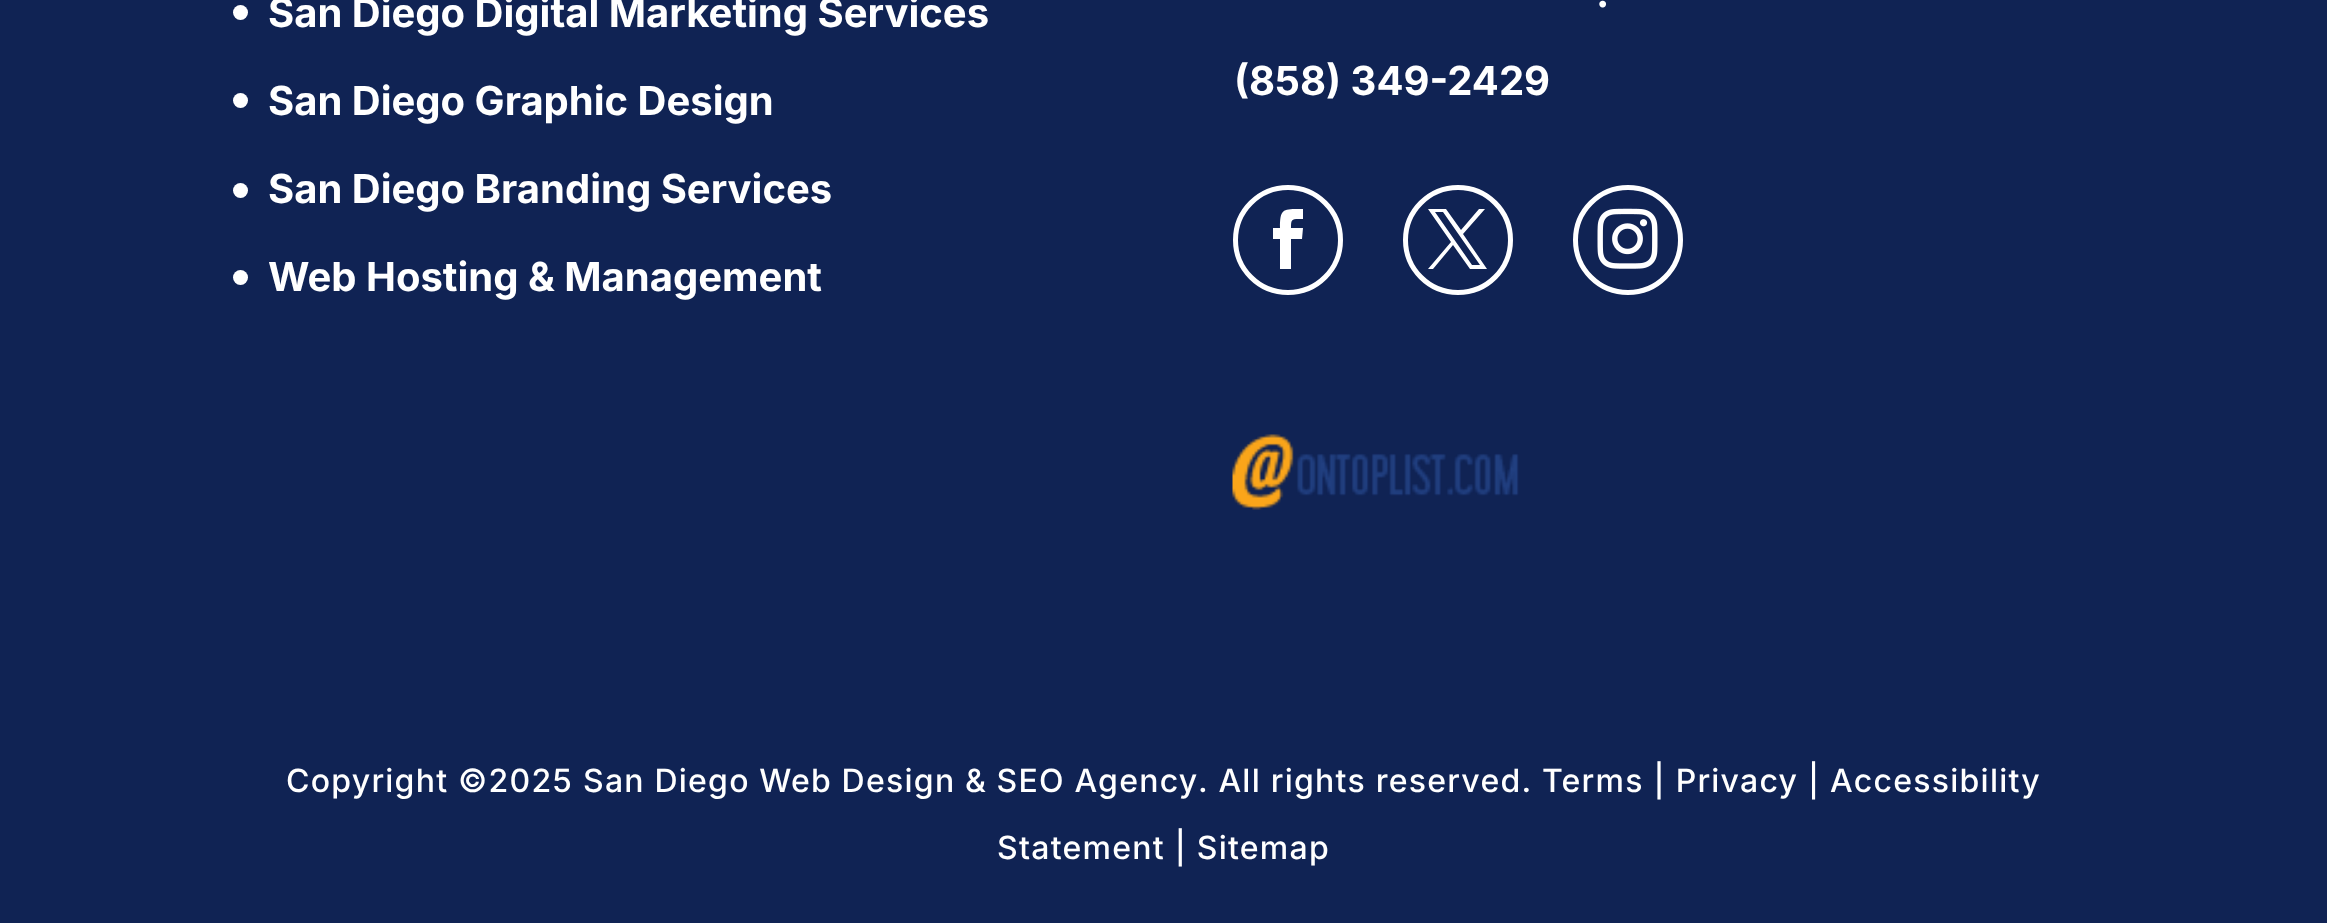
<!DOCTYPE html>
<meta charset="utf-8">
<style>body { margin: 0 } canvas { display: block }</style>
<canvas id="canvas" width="2327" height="923"></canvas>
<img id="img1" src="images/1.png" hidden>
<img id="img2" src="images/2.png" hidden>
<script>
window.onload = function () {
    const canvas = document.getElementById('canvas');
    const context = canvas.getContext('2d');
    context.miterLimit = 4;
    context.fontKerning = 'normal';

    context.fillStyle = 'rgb(16, 35, 84)';
    context.fillRect(0, 0, 2327, 923);
    context.fillStyle = 'rgb(255, 255, 255)';
    context.beginPath();
    context.arc(240.5, 12.5, 7.5, 0, 2 * Math.PI);
    context.fill();
    context.beginPath();
    context.arc(240.5, 100.5, 7.5, 0, 2 * Math.PI);
    context.fill();
    context.beginPath();
    context.arc(240.5, 190.5, 7.5, 0, 2 * Math.PI);
    context.fill();
    context.beginPath();
    context.arc(240.5, 277.5, 7.5, 0, 2 * Math.PI);
    context.fill();
    context.beginPath();
    context.arc(1288, 240, 52.5, 0, 2 * Math.PI);
    context.strokeStyle = 'rgb(255, 255, 255)';
    context.lineWidth = 5;
    context.stroke();
    context.beginPath();
    context.moveTo(1280, 269);
    context.lineTo(1291, 269);
    context.lineTo(1291, 239);
    context.lineTo(1302, 239);
    context.lineTo(1303, 228);
    context.lineTo(1291, 228);
    context.bezierCurveTo(1291, 218, 1292, 219, 1303, 219);
    context.lineTo(1303, 209);
    context.bezierCurveTo(1283, 209, 1280, 208, 1280, 228);
    context.lineTo(1273, 228);
    context.lineTo(1273, 239);
    context.lineTo(1280, 239);
    context.closePath();
    context.fill();
    context.beginPath();
    context.arc(1458, 240, 52.5, 0, 2 * Math.PI);
    context.stroke();
    context.beginPath();
    context.moveTo(1428, 209);
    context.lineTo(1451, 242);
    context.lineTo(1428, 269);
    context.lineTo(1433, 269);
    context.lineTo(1453, 245);
    context.lineTo(1470, 269);
    context.lineTo(1487, 269);
    context.lineTo(1463, 234);
    context.lineTo(1485, 209);
    context.lineTo(1479, 209);
    context.lineTo(1461, 230);
    context.lineTo(1446, 209);
    context.closePath();
    context.moveTo(1435, 212);
    context.lineTo(1443, 212);
    context.lineTo(1480, 265);
    context.lineTo(1472, 265);
    context.closePath();
    context.fill();
    context.beginPath();
    context.arc(1628, 240, 52.5, 0, 2 * Math.PI);
    context.stroke();
    context.drawImage(document.getElementById('img1'), 1597, 208, 61, 61);
    context.drawImage(document.getElementById('img2'), 1232, 434, 287, 76);
    context.font = 'bold 40px Inter';
    context.fillText('San Diego Digital Marketing Services', 268, 27);
    context.fillText('San Diego Graphic Design', 268, 115);
    context.fillText('San Diego Branding Services', 268, 203);
    context.fillText('Web Hosting & Management', 268, 291);
    context.fillText('.', 1596, 7);
    context.fillText('(858) 349-2429', 1234, 95);
    context.letterSpacing = '1.25px';
    context.font = '500 32px Inter';
    context.fillText('Copyright ©2025', 286, 792);
    context.wordSpacing = '-0.25px';
    context.fillText('San Diego Web Design & SEO Agency', 583, 792);
    context.wordSpacing = '0px';
    context.fillText('. All rights reserved. Terms | Privacy | Accessibility', 1198, 792);
    context.fillText('Statement | Sitemap', 997, 859);
};
</script>
